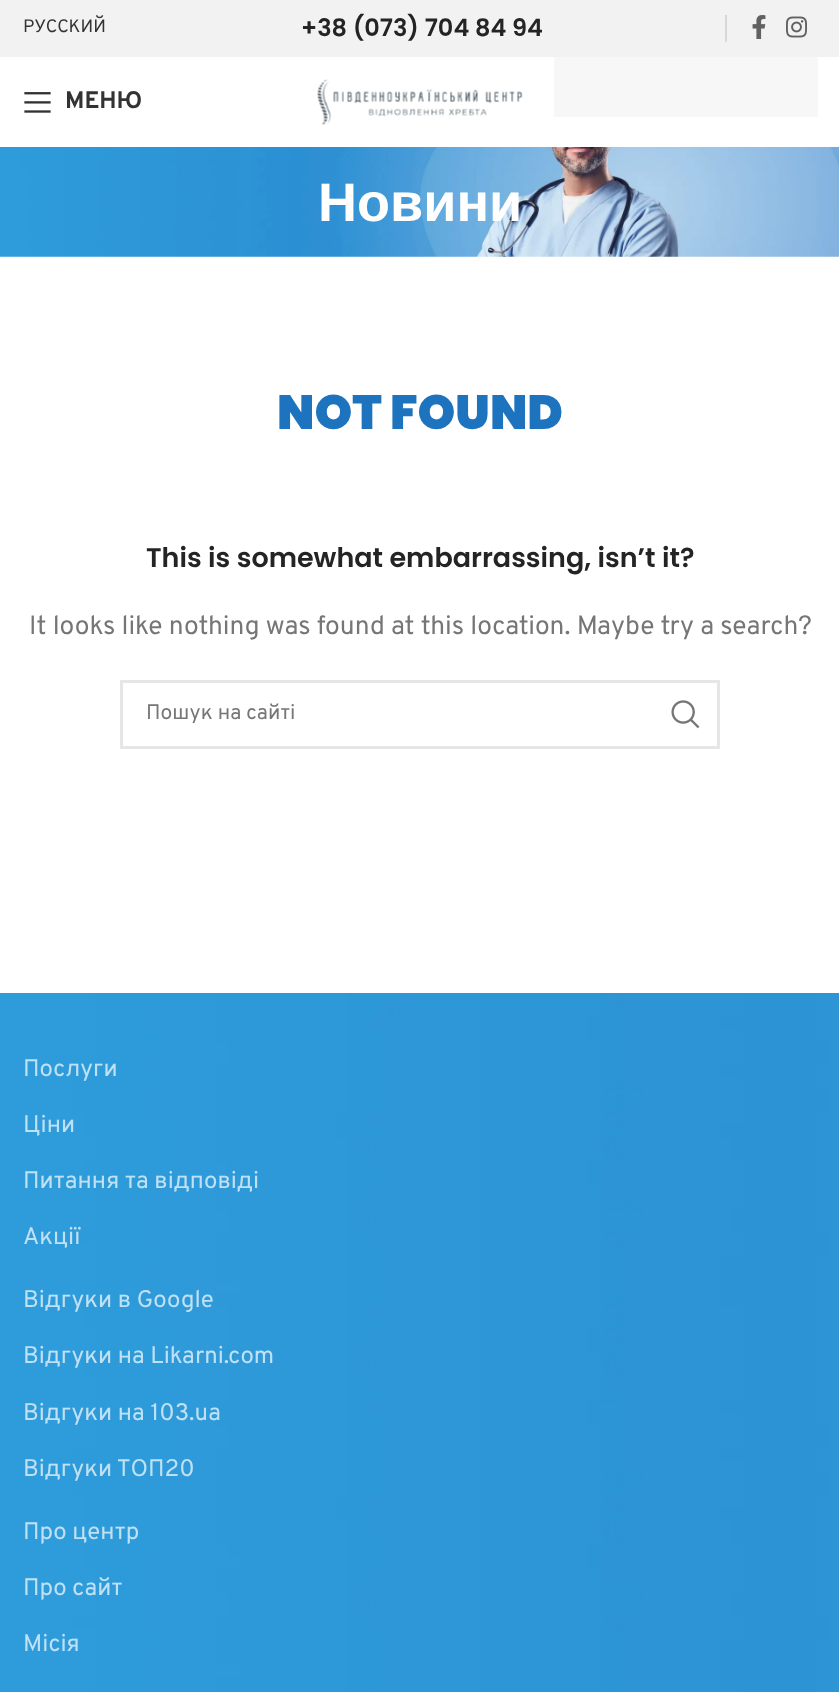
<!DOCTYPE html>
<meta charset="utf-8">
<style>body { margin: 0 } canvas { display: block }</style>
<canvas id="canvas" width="839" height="1692"></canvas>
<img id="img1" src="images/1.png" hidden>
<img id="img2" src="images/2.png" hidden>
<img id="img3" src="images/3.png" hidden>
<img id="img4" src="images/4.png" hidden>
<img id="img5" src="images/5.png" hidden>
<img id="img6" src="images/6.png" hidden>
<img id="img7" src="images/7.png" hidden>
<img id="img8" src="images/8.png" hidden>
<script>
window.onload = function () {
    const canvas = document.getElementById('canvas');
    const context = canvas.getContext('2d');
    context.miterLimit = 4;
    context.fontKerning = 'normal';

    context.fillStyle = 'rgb(255, 255, 255)';
    context.fillRect(0, 0, 839, 1692);
    context.fillStyle = 'rgb(242, 242, 242)';
    context.fillRect(0, 0, 839, 57);
    context.fillStyle = 'rgb(216, 216, 216)';
    context.fillRect(725, 15, 2, 27);
    context.drawImage(document.getElementById('img1'), 752, 15, 14, 24);
    context.drawImage(document.getElementById('img2'), 786, 16, 21, 22);
    context.drawImage(document.getElementById('img3'), 24, 92, 27, 21);
    context.drawImage(document.getElementById('img4'), 317, 79, 206, 46);
    context.fillStyle = 'rgb(247, 247, 247)';
    context.fillRect(554, 57, 264, 60);
    context.drawImage(document.getElementById('img5'), 0, 256, 839, 1);
    context.drawImage(document.getElementById('img6'), 0, 147, 839, 110);
    context.strokeStyle = 'rgb(230, 230, 230)';
    context.lineWidth = 3;
    context.strokeRect(121.5, 681.5, 597, 66);
    context.drawImage(document.getElementById('img7'), 671, 700, 29, 29);
    context.drawImage(document.getElementById('img8'), 0, 993, 839, 699);
    context.font = '18px Overpass';
    context.fillStyle = 'rgb(51, 51, 51)';
    context.fillText('РУССКИЙ', 23, 32);
    context.font = '600 24px Poppins';
    context.fillStyle = 'rgb(36, 36, 36)';
    context.fillText('+38 (073) 704 84 94', 301, 36);
    context.font = 'bold 24px Overpass';
    context.fillStyle = 'rgb(51, 51, 51)';
    context.fillText('МЕНЮ', 65, 108);
    context.font = 'bold 54px Liberation Sans';
    context.fillStyle = 'rgb(255, 255, 255)';
    context.fillText('Новини', 318, 221);
    context.font = '900 48px Poppins';
    context.fillStyle = 'rgb(30, 115, 190)';
    context.fillText('NOT FOUND', 277, 429);
    context.font = '600 27px Poppins';
    context.fillStyle = 'rgb(36, 36, 36)';
    context.fillText('This is somewhat embarrassing, isn’t it?', 146, 567);
    context.font = '26.4px Overpass';
    context.fillStyle = 'rgb(118, 118, 118)';
    context.fillText('It looks like nothing was found at this location. Maybe try a search?', 29, 634);
    context.font = '21px Overpass';
    context.fillText('Пошук на сайті', 146, 719);
    context.font = '24px Overpass';
    context.fillStyle = 'rgb(192, 225, 244)';
    context.fillText('Послуги', 23, 1076);
    context.fillText('Ціни', 23, 1132);
    context.fillText('Питання та відповіді', 23, 1188);
    context.fillText('Акції', 23, 1244);
    context.fillText('Відгуки в Google', 23, 1307);
    context.fillText('Відгуки на Likarni.com', 23, 1363);
    context.fillText('Відгуки на 103.ua', 23, 1420);
    context.fillText('Відгуки ТОП20', 23, 1476);
    context.fillText('Про центр', 23, 1539);
    context.fillText('Про сайт', 23, 1595);
    context.fillText('Місія', 23, 1651);
};
</script>
